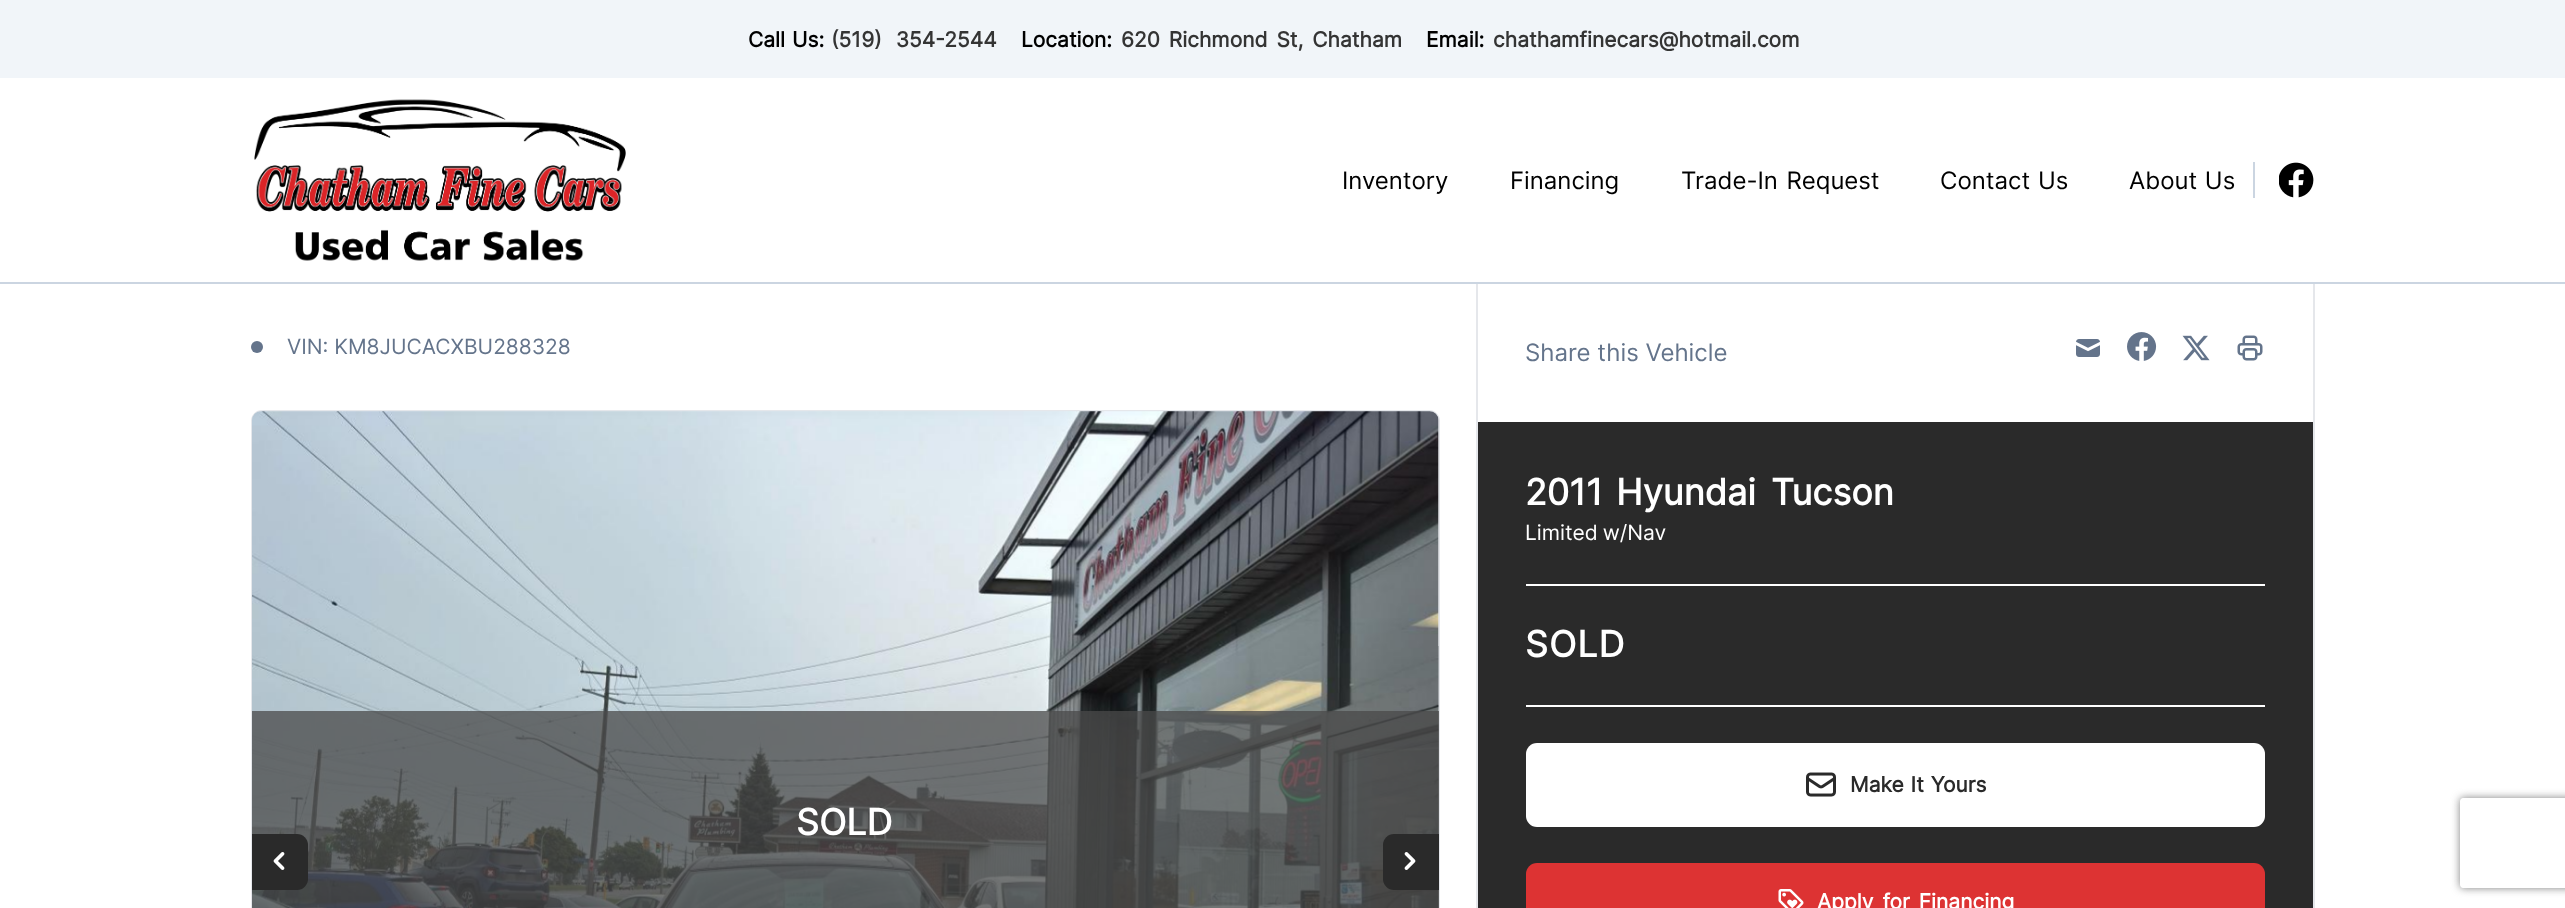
<!DOCTYPE html>
<meta charset="utf-8">
<style>body { margin: 0 } canvas { display: block }</style>
<canvas id="canvas" width="2565" height="908"></canvas>
<img id="img1" src="images/1.png" hidden>
<img id="img2" src="images/2.png" hidden>
<img id="img3" src="images/3.png" hidden>
<img id="img4" src="images/4.png" hidden>
<img id="img5" src="images/5.png" hidden>
<img id="img6" src="images/6.png" hidden>
<img id="img7" src="images/7.png" hidden>
<img id="img8" src="images/8.png" hidden>
<img id="img9" src="images/9.png" hidden>
<img id="img10" src="images/10.png" hidden>
<img id="img11" src="images/11.png" hidden>
<script>
window.onload = function () {
    const canvas = document.getElementById('canvas');
    const context = canvas.getContext('2d');
    context.miterLimit = 4;
    context.fontKerning = 'normal';

    context.fillStyle = 'rgb(255, 255, 255)';
    context.fillRect(0, 0, 2565, 908);
    context.fillStyle = 'rgb(241, 245, 249)';
    context.fillRect(0, 0, 2565, 78);
    context.fillStyle = 'rgb(203, 213, 225)';
    context.fillRect(0, 282, 2565, 2);
    context.drawImage(document.getElementById('img1'), 254, 99, 372, 162);
    context.fillRect(2253, 162, 2, 36);
    context.drawImage(document.getElementById('img2'), 2279, 162, 35, 36);
    context.fillStyle = 'rgb(100, 116, 139)';
    context.beginPath();
    context.arc(257, 347, 6, 0, 2 * Math.PI);
    context.fill();
    context.beginPath();
    context.roundRect(252, 411, 1187, 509, 10);
    context.strokeStyle = 'rgb(229, 231, 235)';
    context.lineWidth = 2;
    context.stroke();
    context.drawImage(document.getElementById('img3'), 252, 411, 1187, 497);
    context.fillStyle = 'rgba(73, 73, 73, 0.75)';
    context.fillRect(252, 711, 1187, 197);
    context.fillStyle = 'rgb(229, 231, 235)';
    context.fillRect(251, 861, 2, 2);
    context.fillStyle = 'rgb(42, 42, 42)';
    context.beginPath();
    context.roundRect(252, 834, 56, 56, [0, 11, 11, 0]);
    context.fill();
    context.drawImage(document.getElementById('img4'), 273, 852, 12, 18);
    context.beginPath();
    context.roundRect(1383, 834, 56, 56, [11, 0, 0, 11]);
    context.fill();
    context.drawImage(document.getElementById('img5'), 1404, 852, 12, 18);
    context.fillStyle = 'rgb(229, 231, 235)';
    context.fillRect(2313, 284, 2, 624);
    context.fillRect(1476, 284, 2, 624);
    context.drawImage(document.getElementById('img6'), 2076, 339, 24, 18);
    context.drawImage(document.getElementById('img7'), 2127, 332, 30, 29);
    context.drawImage(document.getElementById('img8'), 2182, 335, 28, 26);
    context.drawImage(document.getElementById('img9'), 2237, 335, 26, 26);
    context.fillStyle = 'rgb(42, 42, 42)';
    context.fillRect(1478, 422, 835, 486);
    context.fillStyle = 'rgb(255, 255, 255)';
    context.fillRect(1526, 584, 739, 2);
    context.fillRect(1526, 705, 739, 2);
    context.beginPath();
    context.roundRect(1526, 743, 739, 84, 11);
    context.fill();
    context.drawImage(document.getElementById('img10'), 1806, 772, 30, 25);
    context.fillStyle = 'rgb(221, 51, 51)';
    context.beginPath();
    context.roundRect(1526, 863, 739, 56, 11);
    context.fill();
    context.drawImage(document.getElementById('img11'), 1778, 889, 26, 19);
    context.save();
    context.beginPath();
    context.moveTo(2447, 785);
    context.lineTo(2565, 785);
    context.lineTo(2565, 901);
    context.lineTo(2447, 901);
    context.closePath();
    context.moveTo(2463, 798);
    context.lineTo(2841, 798);
    context.bezierCurveTo(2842.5, 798, 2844, 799.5, 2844, 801);
    context.lineTo(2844, 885);
    context.bezierCurveTo(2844, 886.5, 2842.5, 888, 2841, 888);
    context.lineTo(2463, 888);
    context.bezierCurveTo(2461.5, 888, 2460, 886.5, 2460, 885);
    context.lineTo(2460, 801);
    context.bezierCurveTo(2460, 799.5, 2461.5, 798, 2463, 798);
    context.closePath();
    context.clip('evenodd');
    context.fillStyle = 'rgb(128, 128, 128)';
    context.filter = 'blur(4px)';
    context.beginPath();
    context.roundRect(2460, 798, 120, 90, 3);
    context.fill();
    context.filter = 'none';
    context.restore();
    context.wordSpacing = '1px';
    context.font = 'bold 21px Inter';
    context.fillStyle = 'rgb(0, 0, 0)';
    context.fillText('Call Us:', 748, 47);
    context.wordSpacing = '8px';
    context.fillStyle = 'rgb(52, 52, 52)';
    context.fillText('(519) 354-2544', 831, 47);
    context.wordSpacing = '0px';
    context.fillStyle = 'rgb(0, 0, 0)';
    context.fillText('Location:', 1021, 47);
    context.wordSpacing = '3px';
    context.fillStyle = 'rgb(52, 52, 52)';
    context.fillText('620 Richmond St, Chatham', 1121, 47);
    context.wordSpacing = '0px';
    context.fillStyle = 'rgb(0, 0, 0)';
    context.fillText('Email:', 1426, 47);
    context.fillStyle = 'rgb(52, 52, 52)';
    context.fillText('chathamfinecars@hotmail.com', 1493, 47);
    context.font = '24px Inter';
    context.fillStyle = 'rgb(0, 0, 0)';
    context.fillText('Inventory', 1342, 189);
    context.fillText('Financing', 1510, 189);
    context.wordSpacing = '2px';
    context.fillText('Trade-In Request', 1681, 189);
    context.wordSpacing = '1px';
    context.fillText('Contact Us', 1940, 189);
    context.fillText('About Us', 2129, 189);
    context.wordSpacing = '0px';
    context.font = '21px Inter';
    context.fillStyle = 'rgb(100, 116, 139)';
    context.fillText('VIN: KM8JUCACXBU288328', 287, 354);
    context.font = 'bold 36px Inter';
    context.fillStyle = 'rgb(255, 255, 255)';
    context.fillText('SOLD', 796, 835);
    context.font = '24px Inter';
    context.fillStyle = 'rgb(100, 116, 139)';
    context.fillText('Share this Vehicle', 1525, 361);
    context.font = 'bold 36px Inter';
    context.fillStyle = 'rgb(255, 255, 255)';
    context.fillText('2011', 1525, 505);
    context.fillText('Hyundai', 1616, 505);
    context.fillText('Tucson', 1771, 505);
    context.wordSpacing = '-1px';
    context.font = '21px Inter';
    context.fillText('Limited w/Nav', 1525, 540);
    context.letterSpacing = '1px';
    context.wordSpacing = '0px';
    context.font = 'bold 36px Inter';
    context.fillText('SOLD', 1525, 657);
    context.letterSpacing = '0px';
    context.wordSpacing = '1px';
    context.font = 'bold 21px Inter';
    context.fillStyle = 'rgb(42, 42, 42)';
    context.fillText('Make It Yours', 1850, 792);
    context.wordSpacing = '3px';
    context.fillStyle = 'rgb(255, 255, 255)';
    context.fillText('Apply for Financing', 1817, 909);
};
</script>
